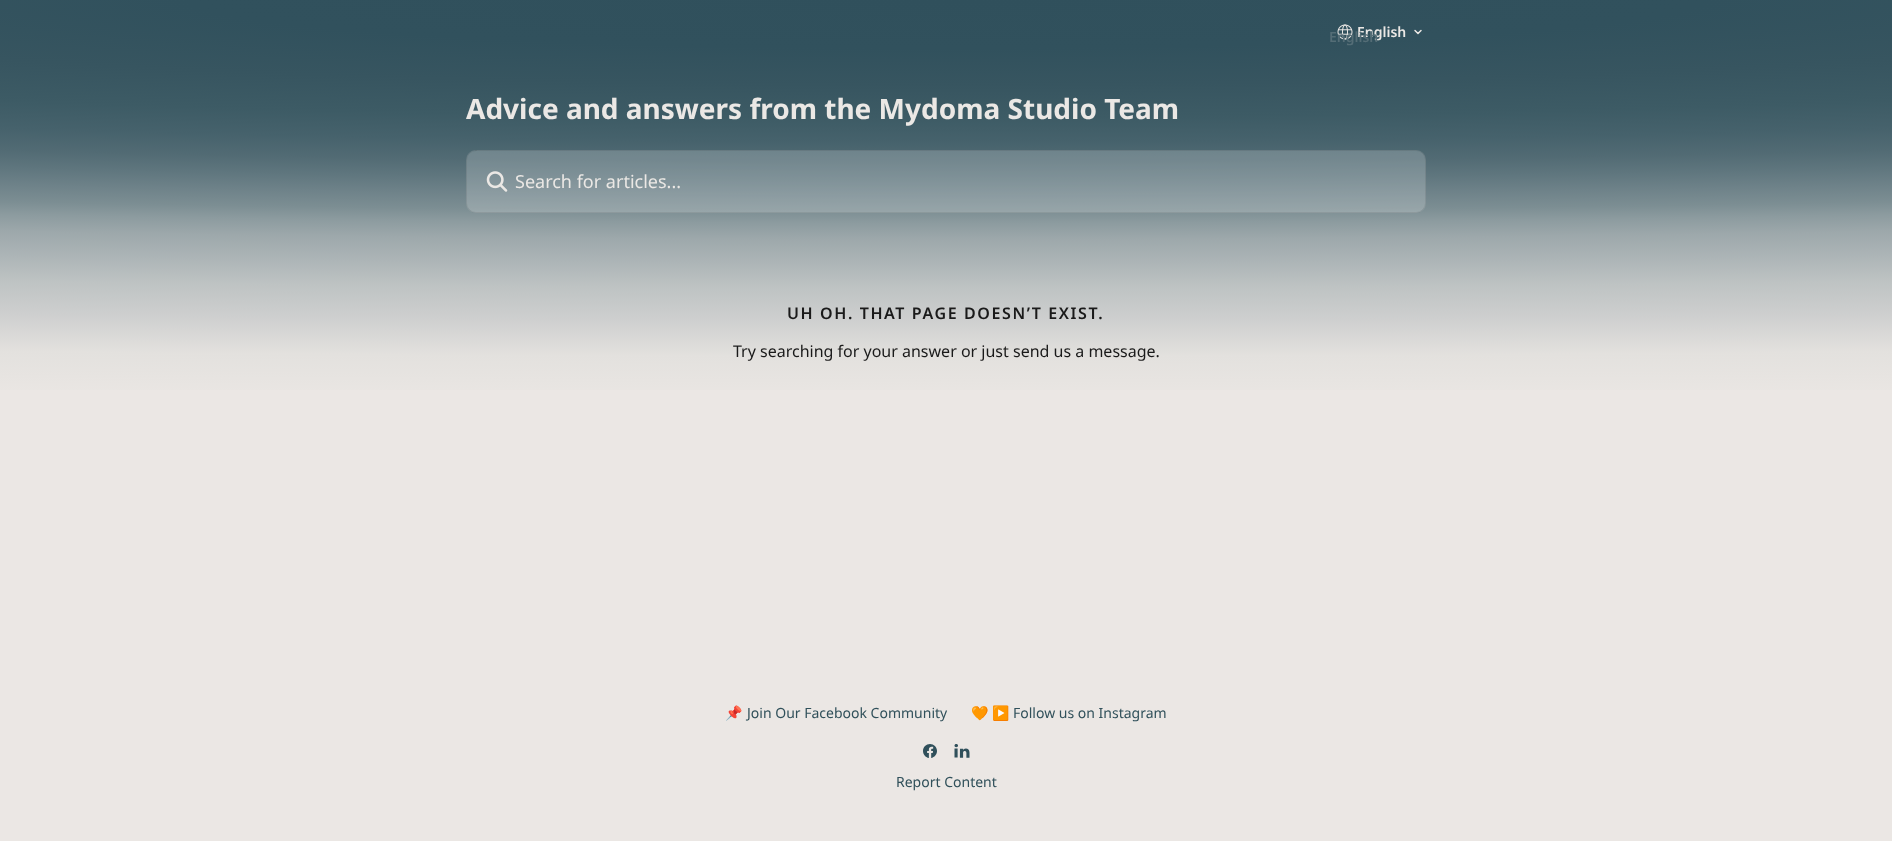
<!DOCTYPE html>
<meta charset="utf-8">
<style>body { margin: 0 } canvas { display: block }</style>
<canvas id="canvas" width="1892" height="841"></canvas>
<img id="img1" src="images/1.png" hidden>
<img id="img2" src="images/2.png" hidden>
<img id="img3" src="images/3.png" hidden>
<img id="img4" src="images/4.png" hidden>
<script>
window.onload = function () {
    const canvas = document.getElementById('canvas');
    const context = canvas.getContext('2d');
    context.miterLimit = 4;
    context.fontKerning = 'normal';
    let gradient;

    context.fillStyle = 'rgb(235, 231, 228)';
    context.fillRect(0, 0, 1892, 841);
    gradient = context.createRadialGradient(946, 0, 0, 946, 0, 6308);
    gradient.addColorStop(0, 'rgb(48, 80, 92)');
    gradient.addColorStop(0.12, 'rgb(49, 81, 93)');
    gradient.addColorStop(0.21, 'rgb(55, 85, 96)');
    gradient.addColorStop(0.29, 'rgb(61, 91, 101)');
    gradient.addColorStop(0.35, 'rgb(70, 98, 108)');
    gradient.addColorStop(0.4, 'rgb(82, 107, 116)');
    gradient.addColorStop(0.44, 'rgb(95, 118, 126)');
    gradient.addColorStop(0.48, 'rgb(110, 130, 137)');
    gradient.addColorStop(0.52, 'rgb(124, 142, 147)');
    gradient.addColorStop(0.55, 'rgb(140, 155, 159)');
    gradient.addColorStop(0.59, 'rgb(157, 168, 171)');
    gradient.addColorStop(0.65, 'rgb(173, 181, 183)');
    gradient.addColorStop(0.71, 'rgb(190, 195, 195)');
    gradient.addColorStop(0.79, 'rgb(206, 207, 207)');
    gradient.addColorStop(0.88, 'rgb(227, 225, 222)');
    gradient.addColorStop(1, 'rgb(235, 231, 228)');
    context.fillStyle = gradient;
    context.beginPath();
    context.rect(0, 0, 1892, 390);
    context.save();
    context.clip();
    context.scale(1, 405 / 6308);
    context.fillRect(0, 0, 1892, 13099);
    context.restore();
    context.drawImage(document.getElementById('img1'), 1337, 24, 16, 16);
    context.beginPath();
    context.moveTo(1415, 30.5);
    context.lineTo(1418, 33.5);
    context.lineTo(1421, 30.5);
    context.strokeStyle = 'rgb(235, 232, 229)';
    context.lineWidth = 1.5;
    context.lineCap = 'round';
    context.lineJoin = 'round';
    context.stroke();
    context.fillStyle = 'rgba(255, 255, 255, 0.2)';
    context.beginPath();
    context.roundRect(466, 150, 960, 63, 10);
    context.fill();
    context.beginPath();
    context.roundRect(466.5, 150.5, 959, 62, 9.5);
    context.strokeStyle = 'rgba(0, 0, 0, 0.08)';
    context.lineWidth = 1;
    context.lineJoin = 'miter';
    context.stroke();
    context.drawImage(document.getElementById('img2'), 486, 171, 22, 21);
    context.drawImage(document.getElementById('img3'), 923, 744, 14, 14);
    context.drawImage(document.getElementById('img4'), 954, 744, 16, 14);
    context.font = '600 14px Noto Sans';
    context.fillStyle = 'rgb(235, 232, 229)';
    context.fillText('English', 1357, 37);
    context.fillStyle = 'rgb(84, 109, 118)';
    context.fillText('English', 1329, 42);
    context.font = 'bold 28px Noto Sans';
    context.fillStyle = 'rgb(235, 232, 229)';
    context.fillText('Advice and answers from the Mydoma Studio Team', 466, 119);
    context.font = '18px Noto Sans';
    context.fillText('Search for articles...', 515, 188);
    context.letterSpacing = '1.6px';
    context.font = '600 16px Noto Sans';
    context.fillStyle = 'rgb(26, 26, 26)';
    context.fillText('UH OH. THAT PAGE DOESN’T EXIST.', 787, 319);
    context.letterSpacing = '0px';
    context.font = '16px Noto Sans';
    context.fillText('Try searching for your answer or just send us a message.', 733, 357);
    context.font = '14px Noto Color Emoji';
    context.fillStyle = 'rgb(48, 80, 90)';
    context.fillText('📌', 725, 718);
    context.font = '14px Noto Sans';
    context.fillText('Join Our Facebook Community', 747, 718);
    context.font = '14px Noto Color Emoji';
    context.fillText('🧡', 971, 718);
    context.fillText('▶️', 992, 718);
    context.font = '14px Noto Sans';
    context.fillText('Follow us on Instagram', 1013, 718);
    context.fillText('Report Content', 896, 787);
};
</script>
